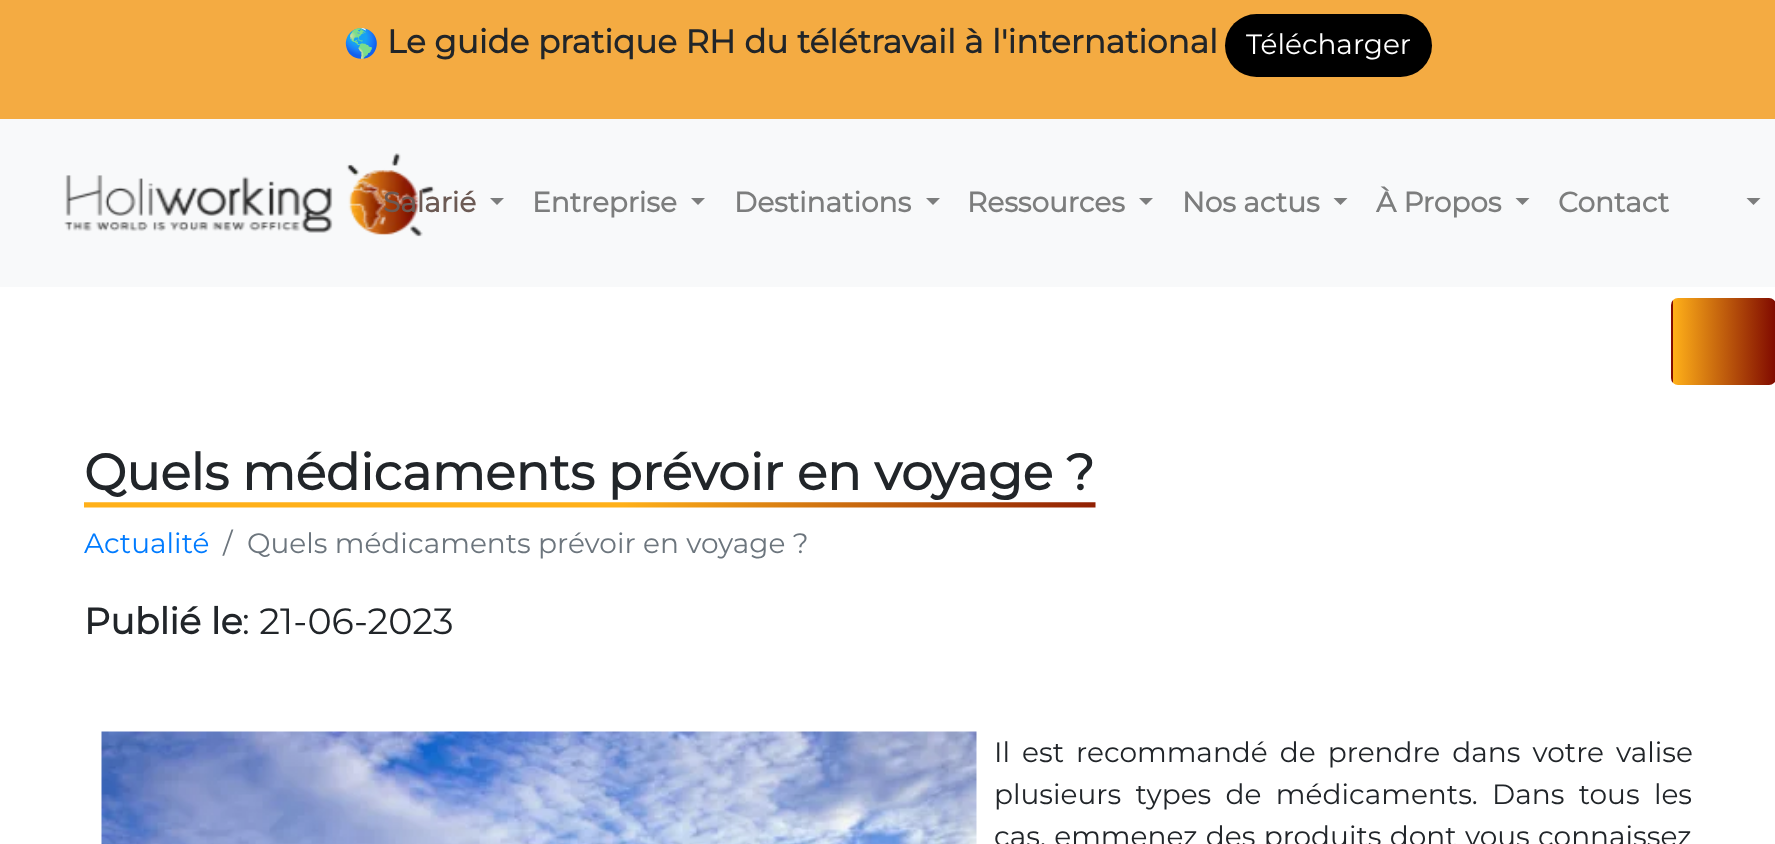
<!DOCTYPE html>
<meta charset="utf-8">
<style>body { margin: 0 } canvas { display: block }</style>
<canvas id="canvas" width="1775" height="844"></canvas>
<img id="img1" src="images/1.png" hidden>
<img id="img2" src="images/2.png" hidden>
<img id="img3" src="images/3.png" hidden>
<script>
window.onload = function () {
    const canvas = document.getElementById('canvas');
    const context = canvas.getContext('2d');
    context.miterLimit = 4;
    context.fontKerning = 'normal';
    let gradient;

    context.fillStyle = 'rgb(255, 255, 255)';
    context.fillRect(0, 0, 1775, 844);
    context.fillStyle = 'rgb(244, 171, 66)';
    context.fillRect(0, 0, 1775, 119);
    context.fillStyle = 'rgb(0, 0, 0)';
    context.beginPath();
    context.roundRect(1225, 14, 207, 63, 31.5);
    context.fill();
    context.fillStyle = 'rgb(248, 249, 250)';
    context.fillRect(0, 119, 1775, 168);
    context.drawImage(document.getElementById('img1'), 64, 153, 371, 84);
    context.fillStyle = 'rgb(124, 125, 125)';
    context.beginPath();
    context.moveTo(490, 198);
    context.lineTo(504, 198);
    context.lineTo(497, 205);
    context.closePath();
    context.fill();
    context.beginPath();
    context.moveTo(691, 198);
    context.lineTo(705, 198);
    context.lineTo(698, 205);
    context.closePath();
    context.fill();
    context.beginPath();
    context.moveTo(926, 198);
    context.lineTo(940, 198);
    context.lineTo(933, 205);
    context.closePath();
    context.fill();
    context.beginPath();
    context.moveTo(1139, 198);
    context.lineTo(1153, 198);
    context.lineTo(1146, 205);
    context.closePath();
    context.fill();
    context.beginPath();
    context.moveTo(1333.5, 198);
    context.lineTo(1347.5, 198);
    context.lineTo(1340.5, 205);
    context.closePath();
    context.fill();
    context.beginPath();
    context.moveTo(1515.5, 198);
    context.lineTo(1529.5, 198);
    context.lineTo(1522.5, 205);
    context.closePath();
    context.fill();
    context.beginPath();
    context.moveTo(1746.5, 198);
    context.lineTo(1760.5, 198);
    context.lineTo(1753.5, 205);
    context.closePath();
    context.fill();
    context.save();
    context.beginPath();
    context.roundRect(1671, 298, 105, 87, 7);
    context.clip();
    gradient = context.createLinearGradient(1572, 341, 1673, 341);
    gradient.addColorStop(0, 'rgb(255, 176, 25)');
    gradient.addColorStop(1, 'rgb(129, 11, 0)');
    context.fillStyle = gradient;
    context.fillRect(1671, 298, 2, 87);
    gradient = context.createLinearGradient(1673, 341, 1775, 341);
    gradient.addColorStop(0, 'rgb(255, 176, 25)');
    gradient.addColorStop(1, 'rgb(129, 11, 0)');
    context.fillStyle = gradient;
    context.fillRect(1673, 298, 102, 87);
    context.restore();
    context.drawImage(document.getElementById('img2'), 84, 502, 1012, 6);
    context.drawImage(document.getElementById('img3'), 101, 731, 876, 113);
    context.font = 'bold 28px Noto Color Emoji';
    context.fillStyle = 'rgb(33, 37, 41)';
    context.fillText('🌎', 344, 53);
    context.font = 'bold 32.7px Montserrat';
    context.fillText('Le guide pratique RH du télétravail à l\'international', 387, 53);
    context.font = '100 28px Montserrat';
    context.fillStyle = 'rgb(255, 255, 255)';
    context.fillText('Télécharger', 1246, 54);
    context.font = 'bold 28px Montserrat';
    context.fillStyle = 'rgb(108, 90, 84)';
    context.fillText('Salarié', 383, 212);
    context.fillStyle = 'rgb(124, 125, 125)';
    context.fillText('Entreprise', 532, 212);
    context.fillText('Destinations', 734, 212);
    context.fillText('Ressources', 967, 212);
    context.fillText('Nos actus', 1182, 212);
    context.fillText('À Propos', 1376, 212);
    context.fillText('Contact', 1558, 212);
    context.font = 'bold 50.4px Montserrat';
    context.fillStyle = 'rgb(33, 37, 41)';
    context.fillText('Quels médicaments prévoir en voyage ?', 84, 490);
    context.font = '100 28px Montserrat';
    context.fillStyle = 'rgb(0, 123, 255)';
    context.fillText('Actualité', 84, 553);
    context.fillStyle = 'rgb(108, 117, 125)';
    context.fillText('/', 223, 553);
    context.fillText('Quels médicaments prévoir en voyage ?', 247, 553);
    context.font = 'bold 36.5px Montserrat';
    context.fillStyle = 'rgb(33, 37, 41)';
    context.fillText('Publié le', 84, 634);
    context.font = '100 36.5px Montserrat';
    context.fillText(': 21-06-2023', 242, 634);
    context.wordSpacing = '4.75px';
    context.font = '100 28px Montserrat';
    context.fillText('Il est recommandé de prendre dans votre valise', 994, 762);
    context.wordSpacing = '7px';
    context.fillText('plusieurs types de médicaments. Dans tous les', 994, 804);
    context.wordSpacing = '1px';
    context.fillText('cas, emmenez des produits dont vous connaissez', 994, 846);
};
</script>
